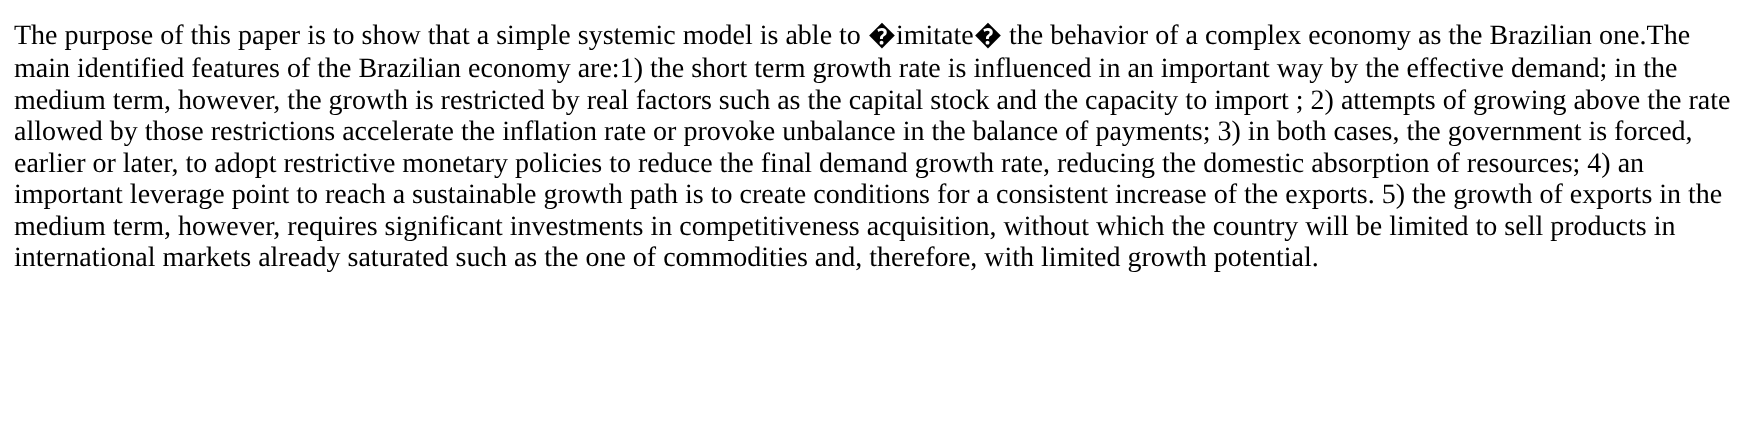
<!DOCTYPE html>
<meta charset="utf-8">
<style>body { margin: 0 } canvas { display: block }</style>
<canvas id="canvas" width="1748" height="440"></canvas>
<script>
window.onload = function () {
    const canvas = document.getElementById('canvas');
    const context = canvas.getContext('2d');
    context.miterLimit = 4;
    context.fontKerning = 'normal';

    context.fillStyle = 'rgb(255, 255, 255)';
    context.fillRect(0, 0, 1748, 440);
    context.font = '28px Liberation Serif';
    context.fillStyle = 'rgb(0, 0, 0)';
    context.fillText('The purpose of this paper is to show that a simple systemic model is able to', 14, 44);
    context.font = '28px Noto Sans';
    context.fillText('�', 868, 44);
    context.font = '28px Liberation Serif';
    context.fillText('imitate', 896, 44);
    context.font = '28px Noto Sans';
    context.fillText('�', 974, 44);
    context.font = '28px Liberation Serif';
    context.fillText('the behavior of a complex economy as the Brazilian one.The', 1009, 44);
    context.fillText('main identified features of the Brazilian economy are:1) the short term growth rate is influenced in an important way by the effective demand; in the', 14, 77);
    context.fillText('medium term, however, the growth is restricted by real factors such as the capital stock and the capacity to import ; 2) attempts of growing above the rate', 14, 109);
    context.fillText('allowed by those restrictions accelerate the inflation rate or provoke unbalance in the balance of payments; 3) in both cases, the government is forced,', 14, 140);
    context.fillText('earlier or later, to adopt restrictive monetary policies to reduce the final demand growth rate, reducing the domestic absorption of resources; 4) an', 14, 172);
    context.fillText('important leverage point to reach a sustainable growth path is to create conditions for a consistent increase of the exports. 5) the growth of exports in the', 14, 203);
    context.fillText('medium term, however, requires significant investments in competitiveness acquisition, without which the country will be limited to sell products in', 14, 235);
    context.fillText('international markets already saturated such as the one of commodities and, therefore, with limited growth potential.', 14, 266);
};
</script>
